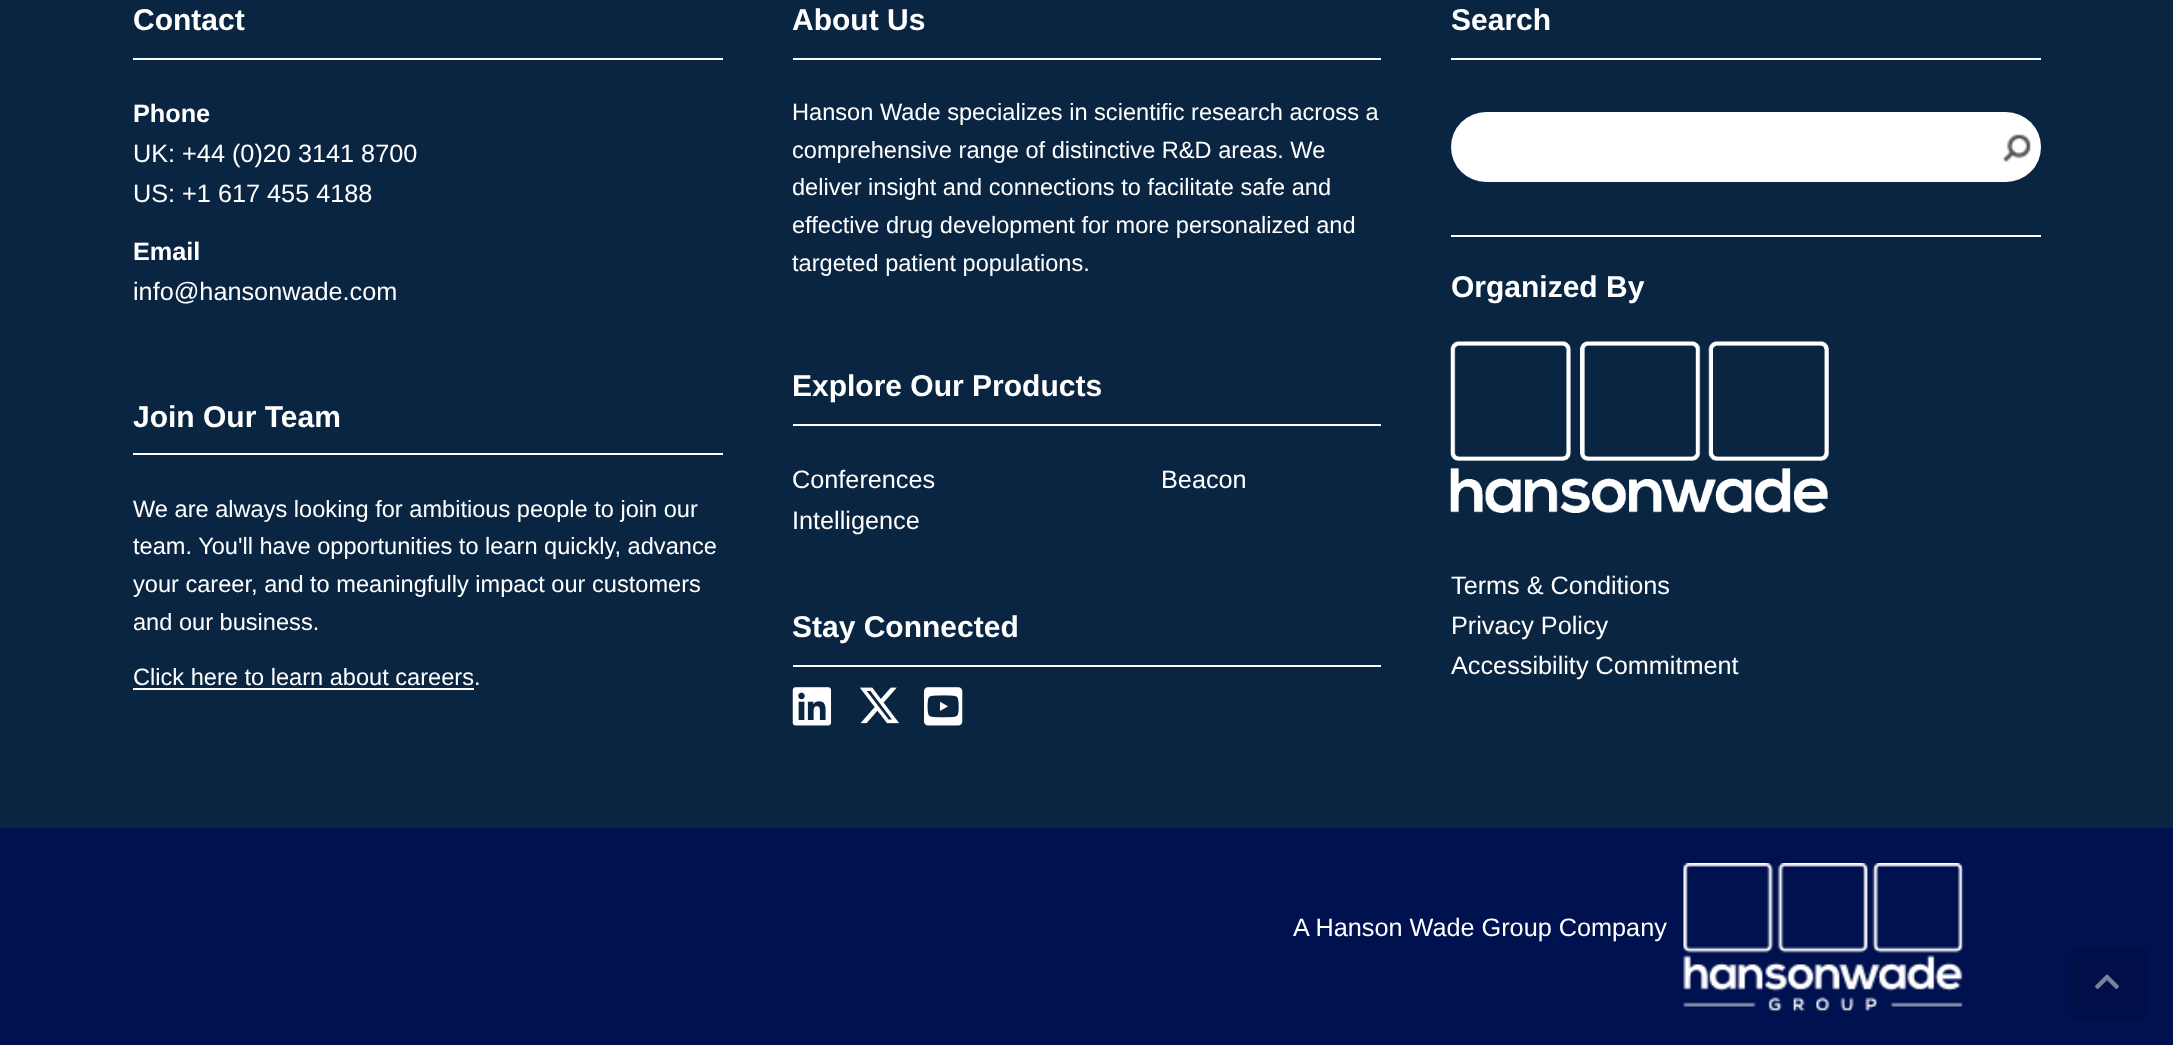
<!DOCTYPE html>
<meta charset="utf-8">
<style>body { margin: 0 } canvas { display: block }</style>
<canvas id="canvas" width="2173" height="1045"></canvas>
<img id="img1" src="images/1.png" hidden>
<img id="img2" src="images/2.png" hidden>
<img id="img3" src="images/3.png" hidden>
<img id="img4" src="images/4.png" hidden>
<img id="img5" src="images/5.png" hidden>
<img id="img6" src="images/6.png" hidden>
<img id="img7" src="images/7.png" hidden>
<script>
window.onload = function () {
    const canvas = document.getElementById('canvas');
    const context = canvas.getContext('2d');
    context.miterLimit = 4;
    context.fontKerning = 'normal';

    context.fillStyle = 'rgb(10, 37, 66)';
    context.fillRect(0, 0, 2173, 1045);
    context.fillStyle = 'rgb(255, 255, 255)';
    context.fillRect(133, 58, 590, 2);
    context.fillRect(133, 453, 590, 2);
    context.fillRect(133, 688, 341, 2);
    context.fillRect(793, 58, 588, 2);
    context.fillRect(793, 424, 588, 2);
    context.fillRect(793, 665, 588, 2);
    context.drawImage(document.getElementById('img1'), 792, 687, 40, 39);
    context.drawImage(document.getElementById('img2'), 860, 687, 39, 37);
    context.drawImage(document.getElementById('img3'), 924, 687, 39, 39);
    context.fillRect(1451, 58, 590, 2);
    context.beginPath();
    context.roundRect(1451, 112, 590, 70, 35);
    context.fill();
    context.drawImage(document.getElementById('img4'), 2003, 124, 38, 46);
    context.fillRect(1451, 235, 590, 2);
    context.drawImage(document.getElementById('img5'), 1450, 341, 379, 172);
    context.fillStyle = 'rgb(0, 17, 79)';
    context.fillRect(0, 828, 2173, 217);
    context.drawImage(document.getElementById('img6'), 1683, 863, 281, 149);
    context.fillStyle = 'rgb(0, 15, 72)';
    context.fillRect(2070, 947, 77, 73);
    context.drawImage(document.getElementById('img7'), 2095, 974, 24, 15);
    context.font = 'bold 30px Liberation Sans';
    context.fillStyle = 'rgb(255, 255, 255)';
    context.fillText('Contact', 133, 30);
    context.font = 'bold 25.25px Liberation Sans';
    context.fillText('Phone', 133, 122);
    context.font = '25.25px Liberation Sans';
    context.fillText('UK: +44 (0)20 3141 8700', 133, 162);
    context.fillText('US: +1 617 455 4188', 133, 202);
    context.font = 'bold 25.25px Liberation Sans';
    context.fillText('Email', 133, 260);
    context.font = '25.25px Liberation Sans';
    context.fillText('info@hansonwade.com', 133, 300);
    context.font = 'bold 30px Liberation Sans';
    context.fillText('Join Our Team', 133, 427);
    context.font = '23.6px Liberation Sans';
    context.fillText('We are always looking for ambitious people to join our', 133, 517);
    context.fillText('team. You\'ll have opportunities to learn quickly, advance', 133, 554);
    context.fillText('your career, and to meaningfully impact our customers', 133, 592);
    context.fillText('and our business.', 133, 630);
    context.fillText('Click here to learn about careers.', 133, 685);
    context.font = 'bold 30px Liberation Sans';
    context.fillText('About Us', 792, 30);
    context.font = '23.6px Liberation Sans';
    context.fillText('Hanson Wade specializes in scientific research across a', 792, 120);
    context.fillText('comprehensive range of distinctive R&D areas. We', 792, 158);
    context.fillText('deliver insight and connections to facilitate safe and', 792, 195);
    context.fillText('effective drug development for more personalized and', 792, 233);
    context.fillText('targeted patient populations.', 792, 271);
    context.font = 'bold 30px Liberation Sans';
    context.fillText('Explore Our Products', 792, 396);
    context.font = '25.25px Liberation Sans';
    context.fillText('Conferences', 792, 488);
    context.fillText('Beacon', 1161, 488);
    context.fillText('Intelligence', 792, 529);
    context.font = 'bold 30px Liberation Sans';
    context.fillText('Stay Connected', 792, 637);
    context.fillText('Search', 1451, 30);
    context.fillText('Organized By', 1451, 297);
    context.font = '25.25px Liberation Sans';
    context.fillText('Terms & Conditions', 1451, 594);
    context.fillText('Privacy Policy', 1451, 634);
    context.fillText('Accessibility Commitment', 1451, 674);
    context.fillText('A Hanson Wade Group Company', 1293, 936);
};
</script>
